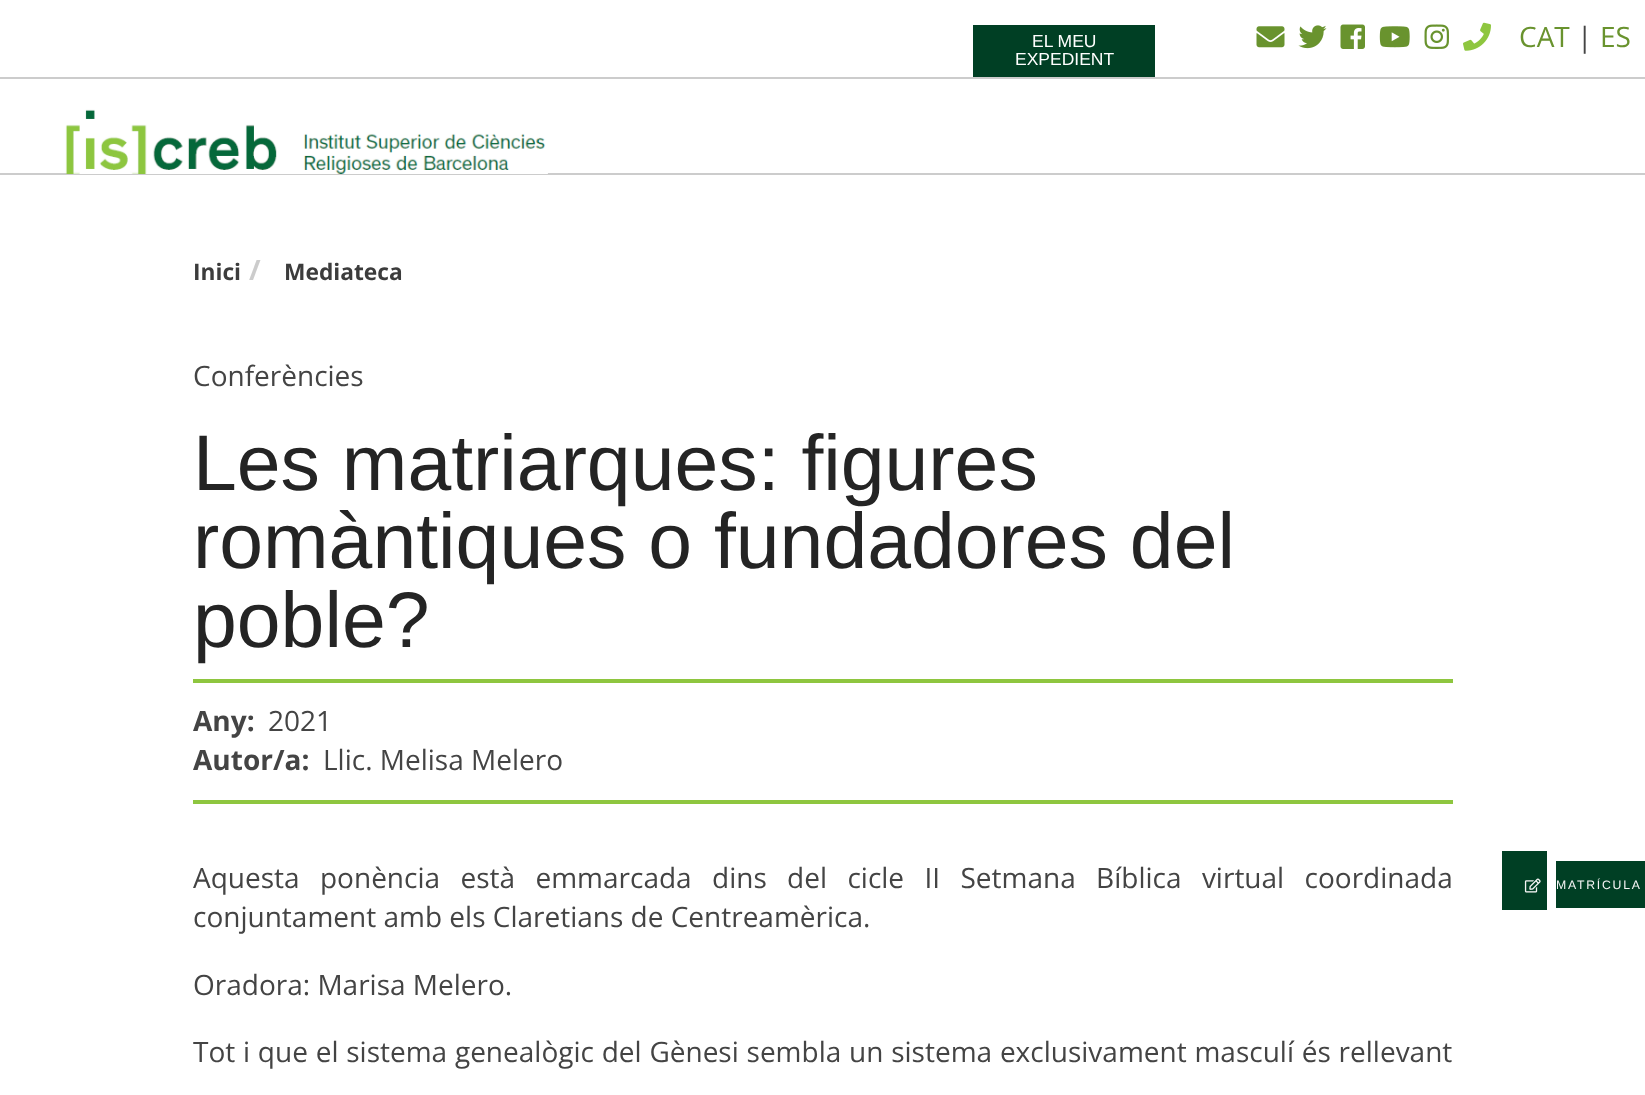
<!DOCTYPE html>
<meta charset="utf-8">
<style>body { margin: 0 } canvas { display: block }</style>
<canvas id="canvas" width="1645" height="1095"></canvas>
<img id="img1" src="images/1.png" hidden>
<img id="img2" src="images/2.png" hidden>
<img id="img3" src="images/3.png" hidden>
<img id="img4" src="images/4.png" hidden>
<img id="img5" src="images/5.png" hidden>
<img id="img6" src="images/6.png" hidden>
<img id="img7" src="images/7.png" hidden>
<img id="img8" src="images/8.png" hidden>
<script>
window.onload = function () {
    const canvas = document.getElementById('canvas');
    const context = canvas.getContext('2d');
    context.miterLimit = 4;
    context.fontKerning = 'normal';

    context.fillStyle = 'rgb(255, 255, 255)';
    context.fillRect(0, 0, 1645, 1095);
    context.fillStyle = 'rgb(204, 204, 204)';
    context.fillRect(0, 77, 1645, 2);
    context.fillStyle = 'rgb(0, 63, 36)';
    context.fillRect(973, 25, 182, 52);
    context.drawImage(document.getElementById('img1'), 1256, 26, 29, 22);
    context.drawImage(document.getElementById('img2'), 1298, 25, 29, 24);
    context.drawImage(document.getElementById('img3'), 1340, 24, 25, 25);
    context.drawImage(document.getElementById('img4'), 1379, 26, 31, 22);
    context.drawImage(document.getElementById('img5'), 1424, 24, 25, 25);
    context.drawImage(document.getElementById('img6'), 1463, 22, 28, 29);
    context.fillStyle = 'rgb(204, 204, 204)';
    context.fillRect(0, 173, 1645, 2);
    context.drawImage(document.getElementById('img7'), 65, 109, 483, 65);
    context.fillStyle = 'rgb(142, 198, 63)';
    context.fillRect(193, 679, 1260, 4);
    context.fillRect(193, 800, 1260, 4);
    context.fillStyle = 'rgb(0, 63, 36)';
    context.fillRect(1502, 851, 45, 59);
    context.fillRect(1556, 861, 89, 47);
    context.drawImage(document.getElementById('img8'), 1524, 878, 17, 15);
    context.font = '17.5px Arimo';
    context.fillStyle = 'rgb(255, 255, 255)';
    context.fillText('EL MEU', 1032, 47);
    context.fillText('EXPEDIENT', 1015, 65);
    context.font = '28px Open Sans';
    context.fillStyle = 'rgb(105, 147, 46)';
    context.fillText('CAT', 1519, 47);
    context.fillStyle = 'rgb(68, 68, 68)';
    context.fillText('|', 1577, 47);
    context.fillStyle = 'rgb(105, 147, 46)';
    context.fillText('ES', 1600, 47);
    context.font = 'bold 22.75px Open Sans';
    context.fillStyle = 'rgb(60, 60, 60)';
    context.fillText('Inici', 193, 280);
    context.font = 'bold 28px Open Sans';
    context.fillStyle = 'rgb(204, 204, 204)';
    context.fillText('/', 249, 280);
    context.font = 'bold 22.75px Open Sans';
    context.fillStyle = 'rgb(60, 60, 60)';
    context.fillText('Mediateca', 284, 280);
    context.font = '28px Open Sans';
    context.fillStyle = 'rgb(68, 68, 68)';
    context.fillText('Conferències', 193, 386);
    context.font = '78.75px Arimo';
    context.fillStyle = 'rgb(36, 36, 36)';
    context.fillText('Les matriarques: figures', 193, 490);
    context.fillText('romàntiques o fundadores del', 193, 568);
    context.fillText('poble?', 193, 647);
    context.font = 'bold 28px Open Sans';
    context.fillStyle = 'rgb(68, 68, 68)';
    context.fillText('Any:', 193, 731);
    context.font = '28px Open Sans';
    context.fillText('2021', 268, 731);
    context.font = 'bold 28px Open Sans';
    context.fillText('Autor/a:', 193, 770);
    context.font = '28px Open Sans';
    context.fillText('Llic. Melisa Melero', 323, 770);
    context.wordSpacing = '13.1px';
    context.fillText('Aquesta ponència està emmarcada dins del cicle II Setmana Bíblica virtual coordinada', 193, 888);
    context.wordSpacing = '0px';
    context.fillText('conjuntament amb els Claretians de Centreamèrica.', 193, 927);
    context.fillText('Oradora: Marisa Melero.', 193, 995);
    context.wordSpacing = '0.5px';
    context.fillText('Tot i que el sistema genealògic del Gènesi sembla un sistema exclusivament masculí és rellevant', 193, 1062);
    context.letterSpacing = '1.75px';
    context.wordSpacing = '0px';
    context.font = '12.25px Liberation Sans';
    context.fillStyle = 'rgb(245, 245, 245)';
    context.fillText('MATRÍCULA', 1556, 889);
};
</script>
